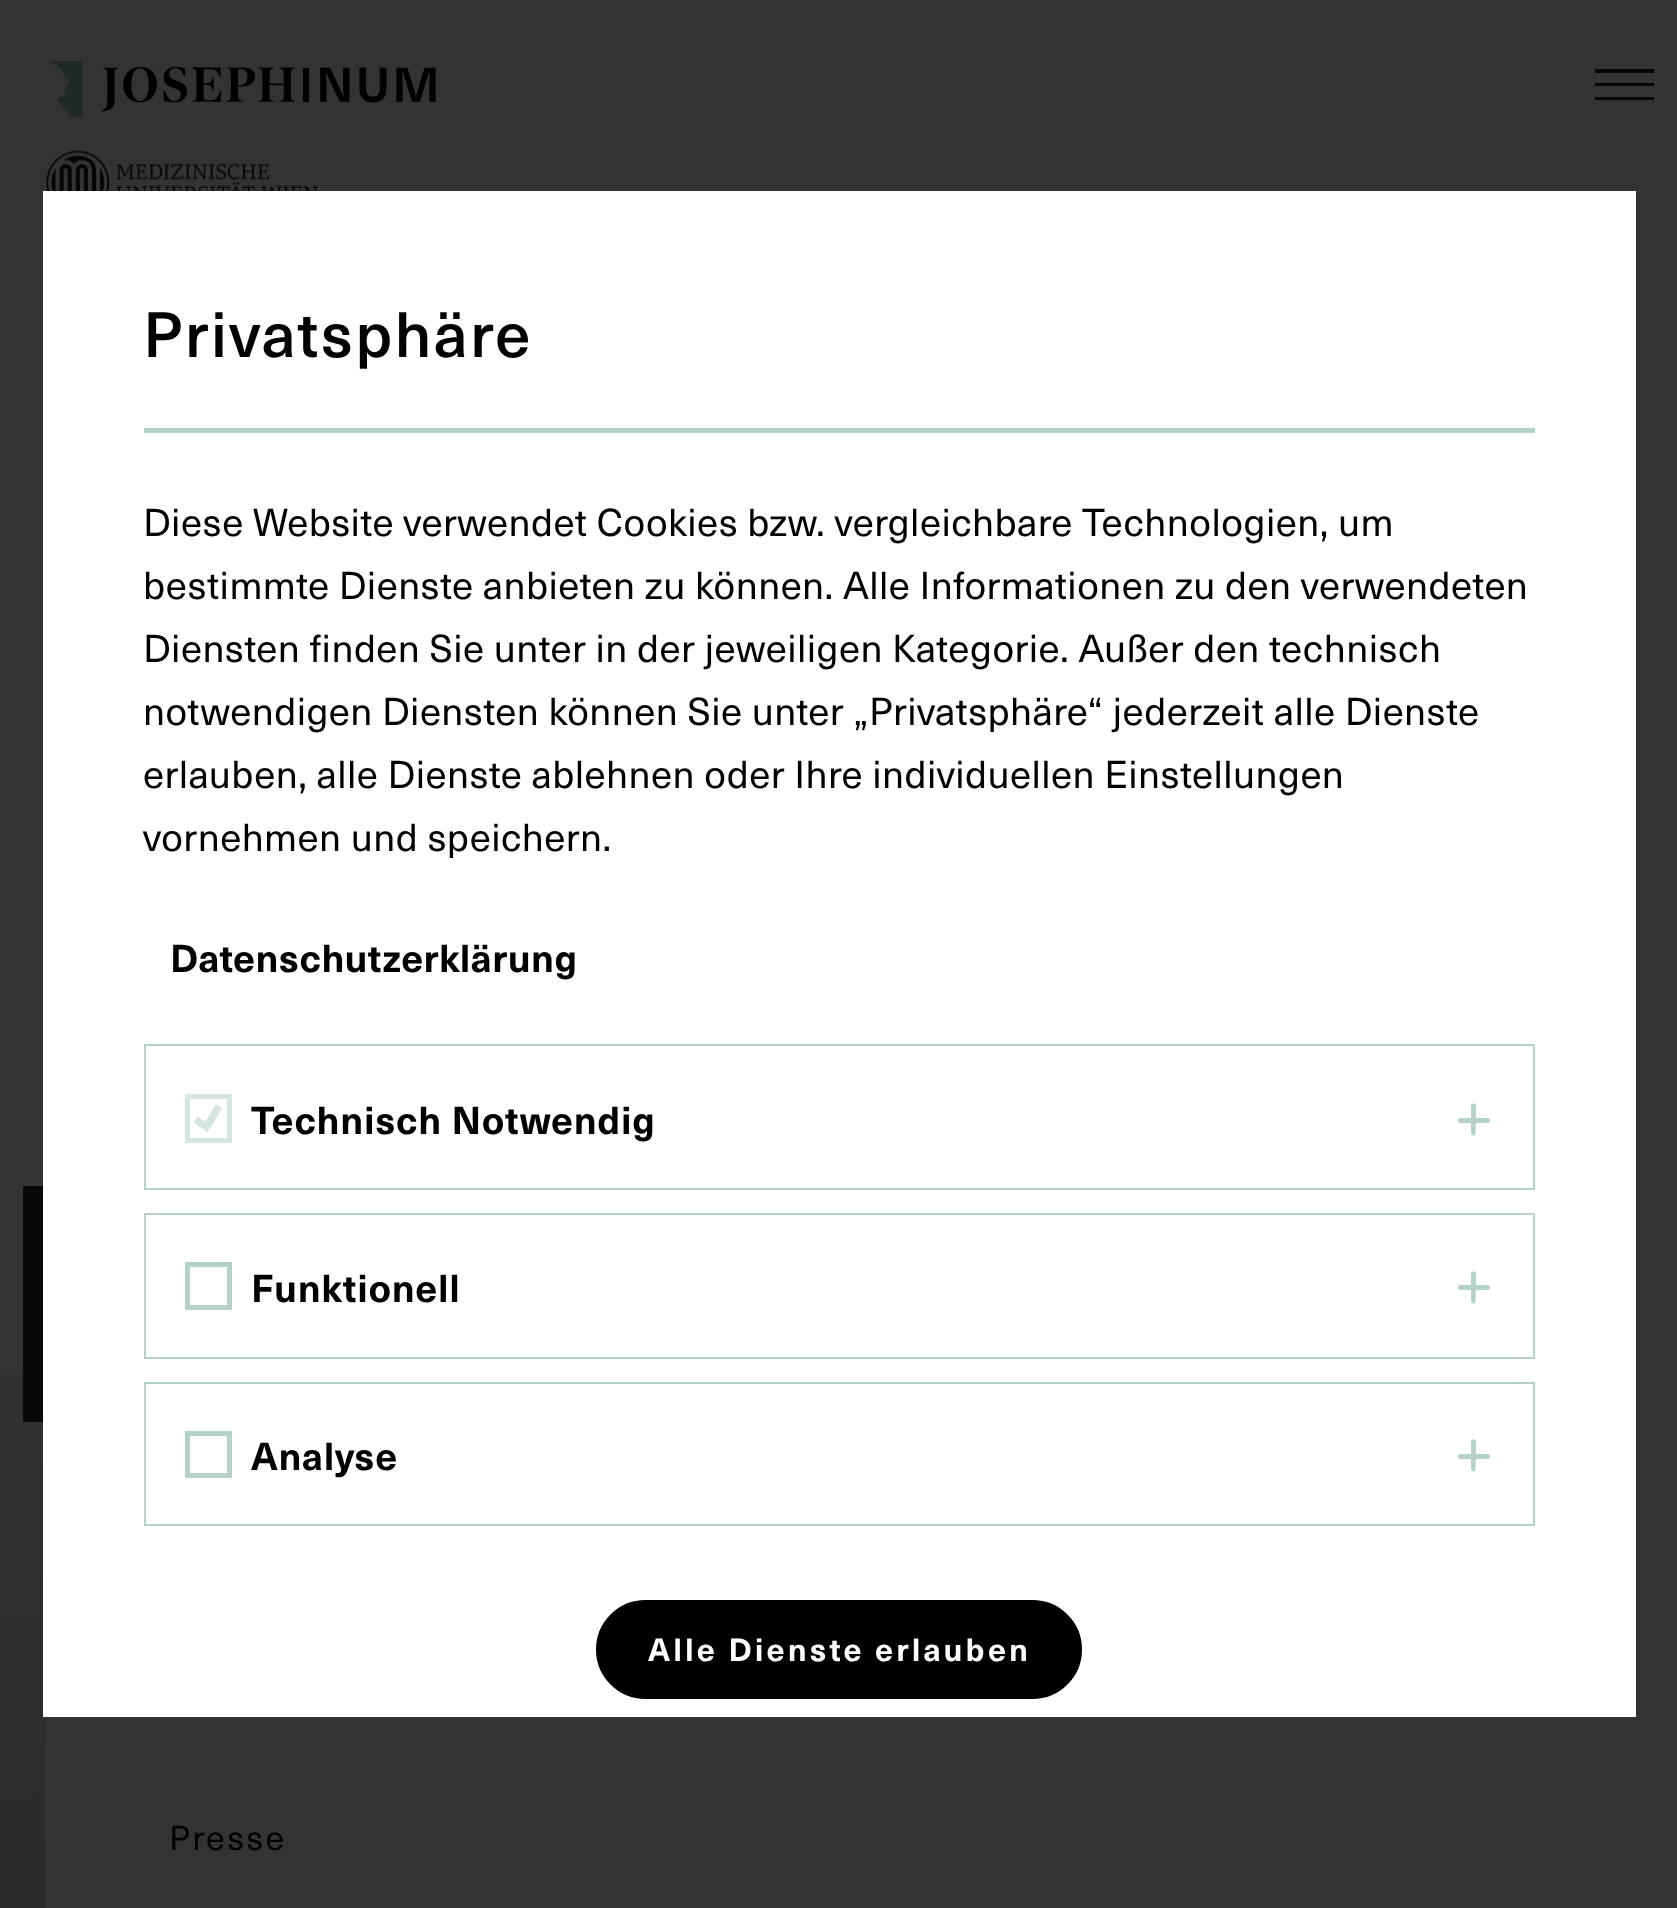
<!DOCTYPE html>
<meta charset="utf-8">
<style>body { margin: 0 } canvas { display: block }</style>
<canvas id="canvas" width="1677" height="1908"></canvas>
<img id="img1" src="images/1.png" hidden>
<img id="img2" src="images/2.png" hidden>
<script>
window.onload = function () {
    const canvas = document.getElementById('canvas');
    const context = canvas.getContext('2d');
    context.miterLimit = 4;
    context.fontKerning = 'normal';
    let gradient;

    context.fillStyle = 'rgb(51, 51, 51)';
    context.fillRect(0, 0, 1677, 1908);
    context.drawImage(document.getElementById('img1'), 49, 61, 387, 56);
    context.drawImage(document.getElementById('img2'), 46, 150, 272, 41);
    context.fillStyle = 'rgb(4, 4, 4)';
    context.beginPath();
    context.moveTo(1595, 69);
    context.lineTo(1654, 69);
    context.lineTo(1654, 73);
    context.lineTo(1595, 73);
    context.closePath();
    context.moveTo(1595, 83);
    context.lineTo(1654, 83);
    context.lineTo(1654, 86);
    context.lineTo(1595, 86);
    context.closePath();
    context.moveTo(1595, 97);
    context.lineTo(1654, 97);
    context.lineTo(1654, 100);
    context.lineTo(1595, 100);
    context.closePath();
    context.fill();
    gradient = context.createRadialGradient(207, 2988.53, 0, 207, 2988.53, 1309);
    gradient.addColorStop(0, 'rgb(39, 42, 41)');
    gradient.addColorStop(1, 'rgb(51, 51, 51)');
    context.fillStyle = gradient;
    context.beginPath();
    context.rect(0, 1374, 45, 534);
    context.save();
    context.clip();
    context.scale(1, 915 / 1309);
    context.fillRect(0, 0, 1677, 2730);
    context.restore();
    gradient = context.createRadialGradient(610, 2577.94, 0, 610, 2577.94, 1309);
    gradient.addColorStop(0, 'rgba(36, 42, 40, 0.4)');
    gradient.addColorStop(1, 'rgba(36, 42, 40, 0)');
    context.fillStyle = gradient;
    context.beginPath();
    context.rect(45, 1234, 1381, 674);
    context.save();
    context.clip();
    context.scale(1, 915 / 1309);
    context.fillRect(0, 0, 1677, 2730);
    context.restore();
    context.fillStyle = 'rgb(51, 51, 51)';
    context.fillRect(45, 1234, 1381, 674);
    context.fillStyle = 'rgb(255, 255, 255)';
    context.fillRect(43, 191, 1593, 1526);
    context.fillStyle = 'rgb(181, 210, 200)';
    context.fillRect(144, 428, 1391, 5);
    context.strokeStyle = 'rgb(181, 210, 200)';
    context.lineWidth = 2;
    context.strokeRect(145, 1045, 1389, 144);
    context.strokeStyle = 'rgb(214, 230, 225)';
    context.lineWidth = 5;
    context.strokeRect(187.5, 1096.5, 42, 44);
    context.save();
    context.beginPath();
    context.rect(194, 1105, 29, 27);
    context.clip();
    context.fillStyle = 'rgb(214, 230, 225)';
    context.beginPath();
    context.moveTo(197.5, 1116.5);
    context.lineTo(205.5, 1121.5);
    context.lineTo(216, 1103.5);
    context.lineTo(222, 1108.5);
    context.lineTo(207.5, 1132.5);
    context.lineTo(193.5, 1122.5);
    context.closePath();
    context.fill();
    context.restore();
    context.beginPath();
    context.roundRect(1458, 1118, 32, 5, 2.5);
    context.fill();
    context.beginPath();
    context.moveTo(1471, 1133);
    context.lineTo(1471, 1105.5);
    context.lineTo(1471.5, 1104.5);
    context.bezierCurveTo(1472, 1103.5, 1473, 1103.5, 1474, 1103.5);
    context.bezierCurveTo(1477, 1104, 1476, 1109, 1476, 1110.5);
    context.lineTo(1475.5, 1134);
    context.bezierCurveTo(1474.5, 1136.5, 1471, 1136, 1471, 1133);
    context.closePath();
    context.fill();
    context.strokeStyle = 'rgb(181, 210, 200)';
    context.lineWidth = 2;
    context.strokeRect(145, 1214, 1389, 144);
    context.lineWidth = 5;
    context.strokeRect(187.5, 1264.5, 42, 43);
    context.beginPath();
    context.roundRect(1458, 1285, 32, 5, 2.5);
    context.fill();
    context.beginPath();
    context.moveTo(1471, 1301);
    context.lineTo(1471, 1273.5);
    context.lineTo(1471.5, 1272);
    context.bezierCurveTo(1472, 1271.5, 1473, 1271.5, 1474, 1271.5);
    context.bezierCurveTo(1477, 1272, 1476, 1276.5, 1476, 1278.5);
    context.lineTo(1475.5, 1302);
    context.bezierCurveTo(1474.5, 1304.5, 1471, 1304, 1471, 1301);
    context.closePath();
    context.fill();
    context.lineWidth = 2;
    context.strokeRect(145, 1383, 1389, 142);
    context.lineWidth = 5;
    context.strokeRect(187.5, 1433.5, 42, 42);
    context.beginPath();
    context.roundRect(1458, 1454, 32, 5, 2.5);
    context.fill();
    context.beginPath();
    context.moveTo(1471, 1469);
    context.lineTo(1471, 1441.5);
    context.lineTo(1471.5, 1440);
    context.bezierCurveTo(1472, 1439.5, 1473, 1439, 1474, 1439.5);
    context.bezierCurveTo(1477, 1440, 1476, 1444.5, 1476, 1446.5);
    context.lineTo(1475.5, 1470);
    context.bezierCurveTo(1474.5, 1472.5, 1471, 1471.5, 1471, 1469);
    context.closePath();
    context.fill();
    context.fillStyle = 'rgb(0, 0, 0)';
    context.beginPath();
    context.roundRect(597, 1601, 484, 97, 48.5);
    context.fill();
    context.strokeStyle = 'rgb(0, 0, 0)';
    context.lineWidth = 2;
    context.stroke();
    context.fillStyle = 'rgb(9, 9, 9)';
    context.fillRect(23, 1186, 20, 236);
    context.letterSpacing = '2.25px';
    context.font = '500 63px "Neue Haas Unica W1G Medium"';
    context.fillStyle = 'rgb(0, 0, 0)';
    context.fillText('Privatsphäre', 143, 357);
    context.letterSpacing = '0.45px';
    context.font = '38.25px "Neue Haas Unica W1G"';
    context.fillText('Diese Website verwendet Cookies bzw. vergleichbare Technologien, um', 143, 536);
    context.fillText('bestimmte Dienste anbieten zu können. Alle Informationen zu den verwendeten', 143, 599);
    context.fillText('Diensten finden Sie unter in der jeweiligen Kategorie. Außer den technisch', 143, 662);
    context.fillText('notwendigen Diensten können Sie unter „Privatsphäre“ jederzeit alle Dienste', 143, 725);
    context.fillText('erlauben, alle Dienste ablehnen oder Ihre individuellen Einstellungen', 143, 788);
    context.fillText('vornehmen und speichern.', 143, 851);
    context.font = 'bold 38.25px "Neue Haas Unica W1G"';
    context.fillText('Datenschutzerklärung', 170, 972);
    context.letterSpacing = '0.7px';
    context.fillText('Technisch Notwendig', 251, 1134);
    context.fillText('Funktionell', 251, 1302);
    context.fillText('Analyse', 251, 1470);
    context.letterSpacing = '3.15px';
    context.font = 'bold 31.5px "Neue Haas Unica W1G"';
    context.fillStyle = 'rgb(255, 255, 255)';
    context.fillText('Alle Dienste erlauben', 648, 1661);
    context.letterSpacing = '2.25px';
    context.font = '34px "Neue Haas Unica W1G"';
    context.fillStyle = 'rgb(0, 0, 0)';
    context.fillText('Presse', 169, 1850);
};
</script>
